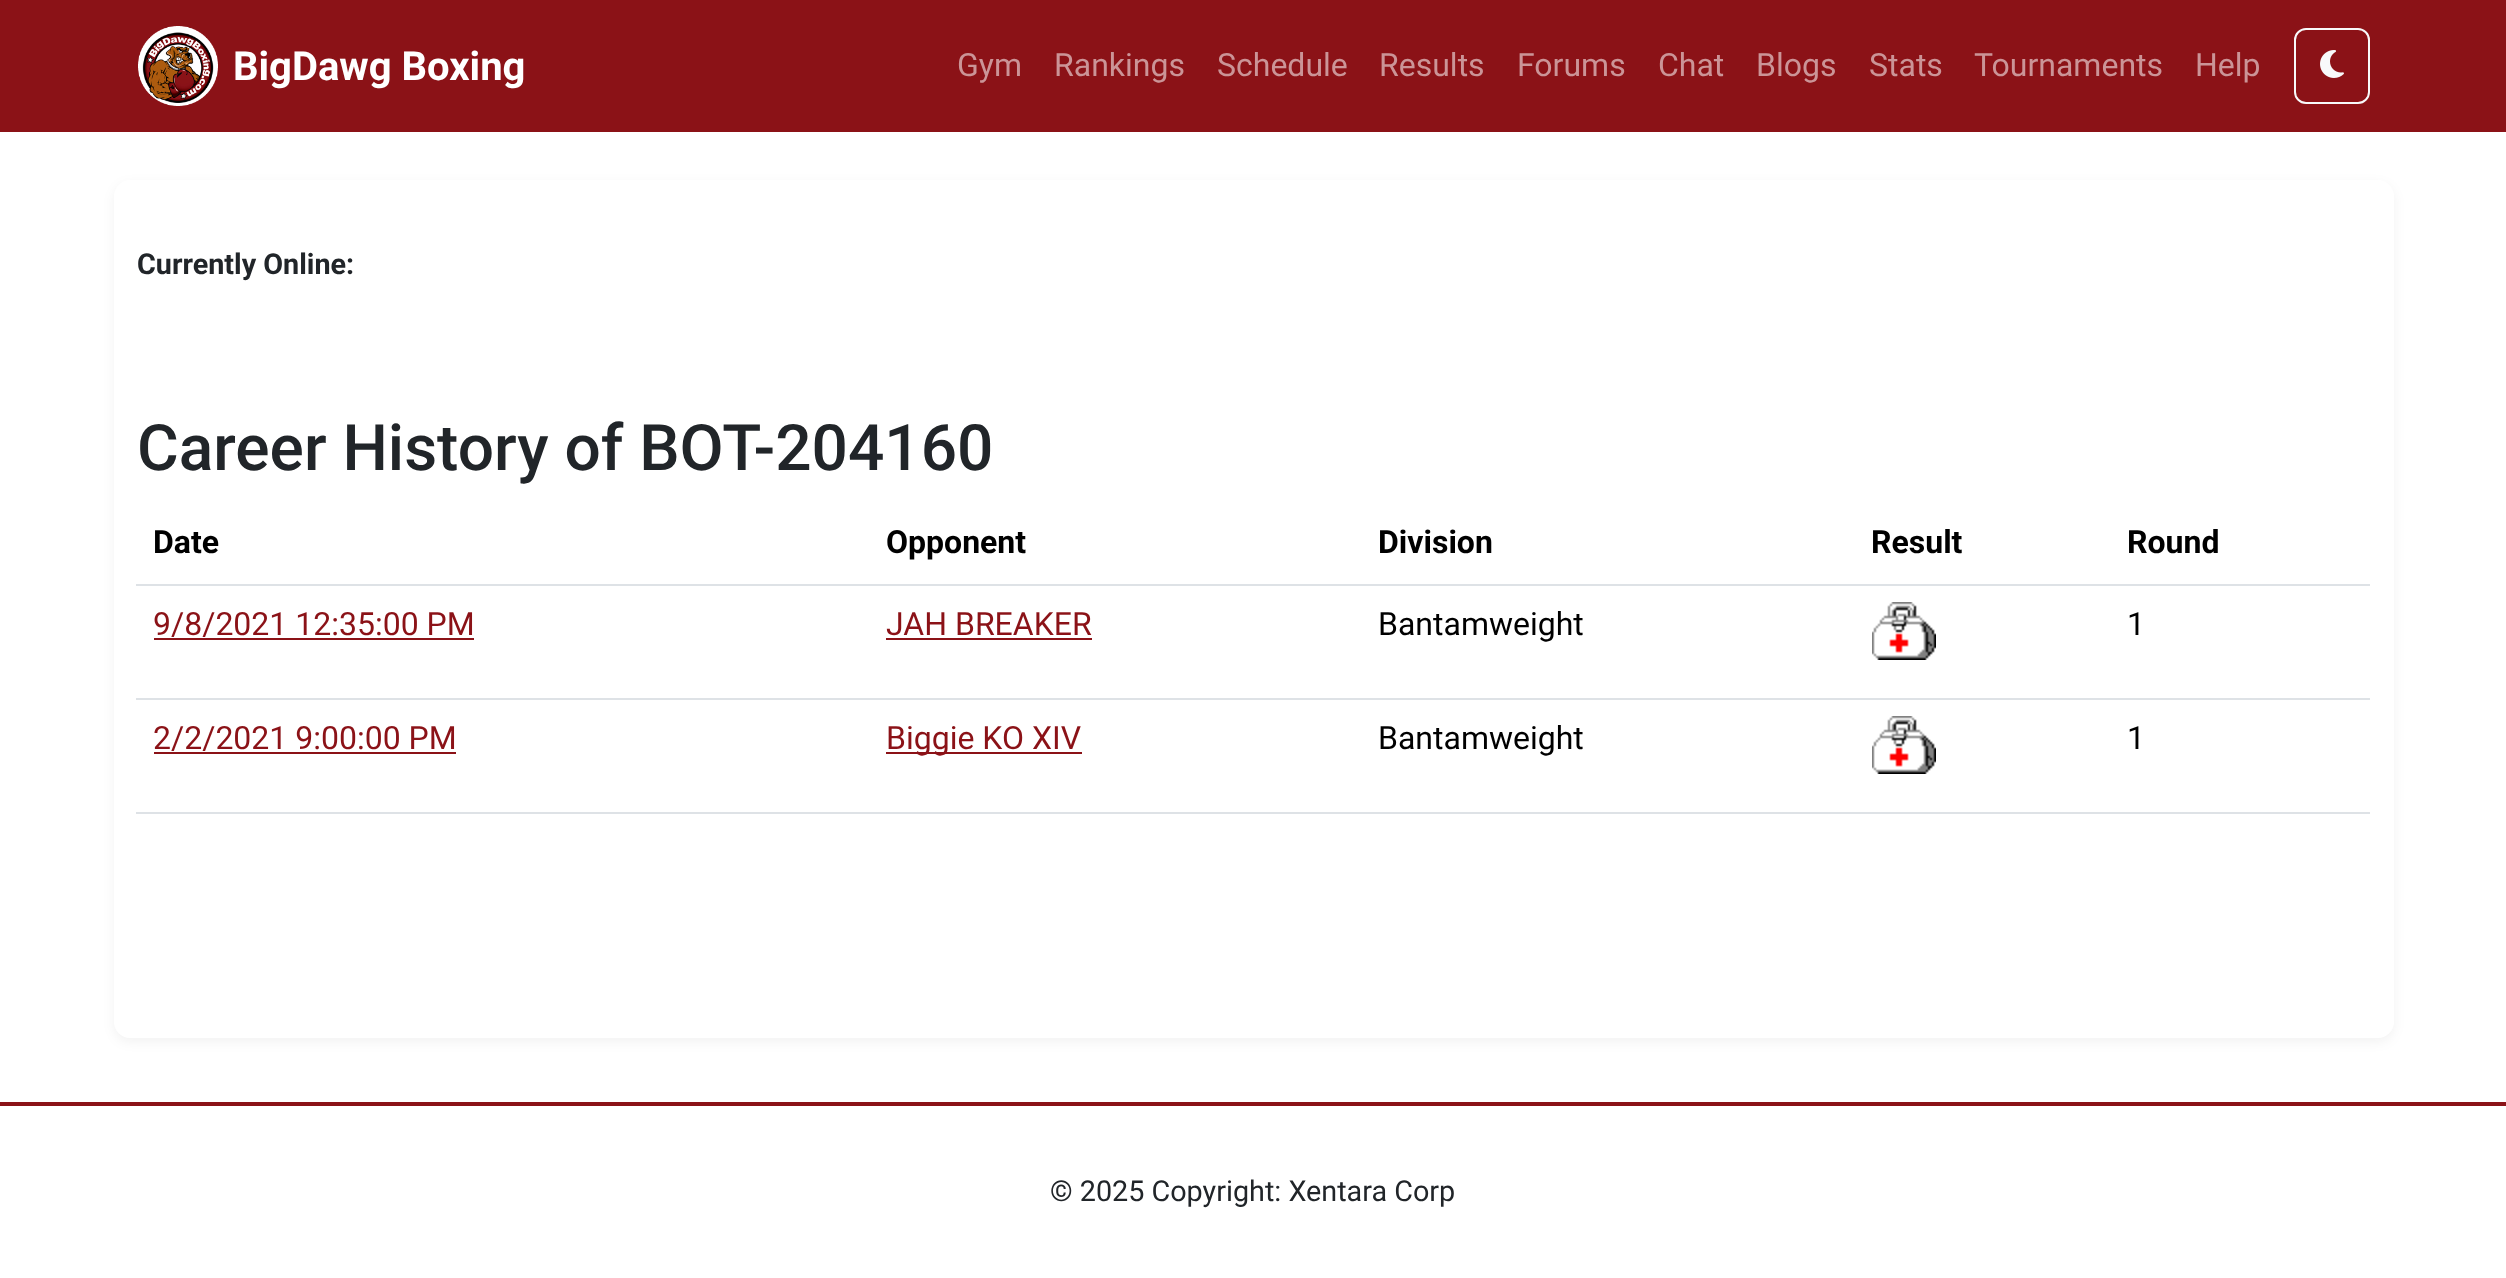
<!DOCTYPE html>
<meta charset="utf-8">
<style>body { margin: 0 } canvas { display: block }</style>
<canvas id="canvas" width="2506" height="1278"></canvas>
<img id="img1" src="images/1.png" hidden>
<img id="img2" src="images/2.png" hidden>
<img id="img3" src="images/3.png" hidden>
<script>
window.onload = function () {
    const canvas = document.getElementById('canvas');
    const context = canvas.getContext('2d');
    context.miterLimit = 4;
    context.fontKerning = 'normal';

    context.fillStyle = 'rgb(255, 255, 255)';
    context.fillRect(0, 0, 2506, 1278);
    context.fillStyle = 'rgb(139, 18, 23)';
    context.fillRect(0, 0, 2506, 132);
    context.drawImage(document.getElementById('img1'), 138, 26, 80, 80);
    context.beginPath();
    context.roundRect(2295, 29, 74, 74, 11);
    context.strokeStyle = 'rgb(248, 249, 250)';
    context.lineWidth = 2;
    context.stroke();
    context.drawImage(document.getElementById('img2'), 2320, 50, 24, 28);
    context.fillStyle = 'rgba(0, 0, 0, 0.05)';
    context.filter = 'blur(6px)';
    context.beginPath();
    context.roundRect(114, 184, 2280, 858, 16);
    context.fill();
    context.filter = 'none';
    context.fillStyle = 'rgb(255, 255, 255)';
    context.beginPath();
    context.roundRect(114, 180, 2280, 858, 16);
    context.fill();
    context.fillStyle = 'rgb(222, 226, 230)';
    context.fillRect(136, 584, 2234, 2);
    context.fillStyle = 'rgb(139, 18, 23)';
    context.fillRect(154, 638, 320, 2);
    context.fillRect(886, 638, 206, 2);
    context.drawImage(document.getElementById('img3'), 1872, 602, 64, 58);
    context.fillStyle = 'rgb(222, 226, 230)';
    context.fillRect(136, 698, 2234, 2);
    context.fillStyle = 'rgb(139, 18, 23)';
    context.fillRect(154, 752, 302, 2);
    context.fillRect(886, 752, 196, 2);
    context.drawImage(document.getElementById('img3'), 1872, 716, 64, 58);
    context.fillStyle = 'rgb(222, 226, 230)';
    context.fillRect(136, 812, 2234, 2);
    context.fillStyle = 'rgb(139, 18, 23)';
    context.fillRect(0, 1102, 2506, 4);
    context.font = 'bold 40px Roboto';
    context.fillStyle = 'rgb(255, 255, 255)';
    context.fillText('BigDawg Boxing', 233, 80);
    context.font = '32px Roboto';
    context.fillStyle = 'rgb(203, 148, 151)';
    context.fillText('Gym', 957, 76);
    context.fillText('Rankings', 1054, 76);
    context.fillText('Schedule', 1217, 76);
    context.fillText('Results', 1379, 76);
    context.fillText('Forums', 1517, 76);
    context.fillText('Chat', 1658, 76);
    context.fillText('Blogs', 1756, 76);
    context.fillText('Stats', 1869, 76);
    context.fillText('Tournaments', 1974, 76);
    context.fillText('Help', 2195, 76);
    context.font = 'bold 28.75px Roboto';
    context.fillStyle = 'rgb(33, 37, 41)';
    context.fillText('Currently Online:', 137, 274);
    context.font = '500 64px Roboto';
    context.fillText('Career History of BOT-204160', 137, 470);
    context.font = 'bold 32px Roboto';
    context.fillStyle = 'rgb(0, 0, 0)';
    context.fillText('Date', 153, 553);
    context.fillText('Opponent', 886, 553);
    context.fillText('Division', 1378, 553);
    context.fillText('Result', 1871, 553);
    context.fillText('Round', 2127, 553);
    context.font = '32px Roboto';
    context.fillStyle = 'rgb(139, 18, 23)';
    context.fillText('9/8/2021 12:35:00 PM', 153, 635);
    context.fillText('JAH BREAKER', 886, 635);
    context.fillStyle = 'rgb(0, 0, 0)';
    context.fillText('Bantamweight', 1378, 635);
    context.fillText('1', 2127, 635);
    context.fillStyle = 'rgb(139, 18, 23)';
    context.fillText('2/2/2021 9:00:00 PM', 153, 749);
    context.fillText('Biggie KO XIV', 886, 749);
    context.fillStyle = 'rgb(0, 0, 0)';
    context.fillText('Bantamweight', 1378, 749);
    context.fillText('1', 2127, 749);
    context.font = '28.75px Roboto';
    context.fillStyle = 'rgb(33, 37, 41)';
    context.fillText('© 2025 Copyright: Xentara Corp', 1050, 1201);
};
</script>
